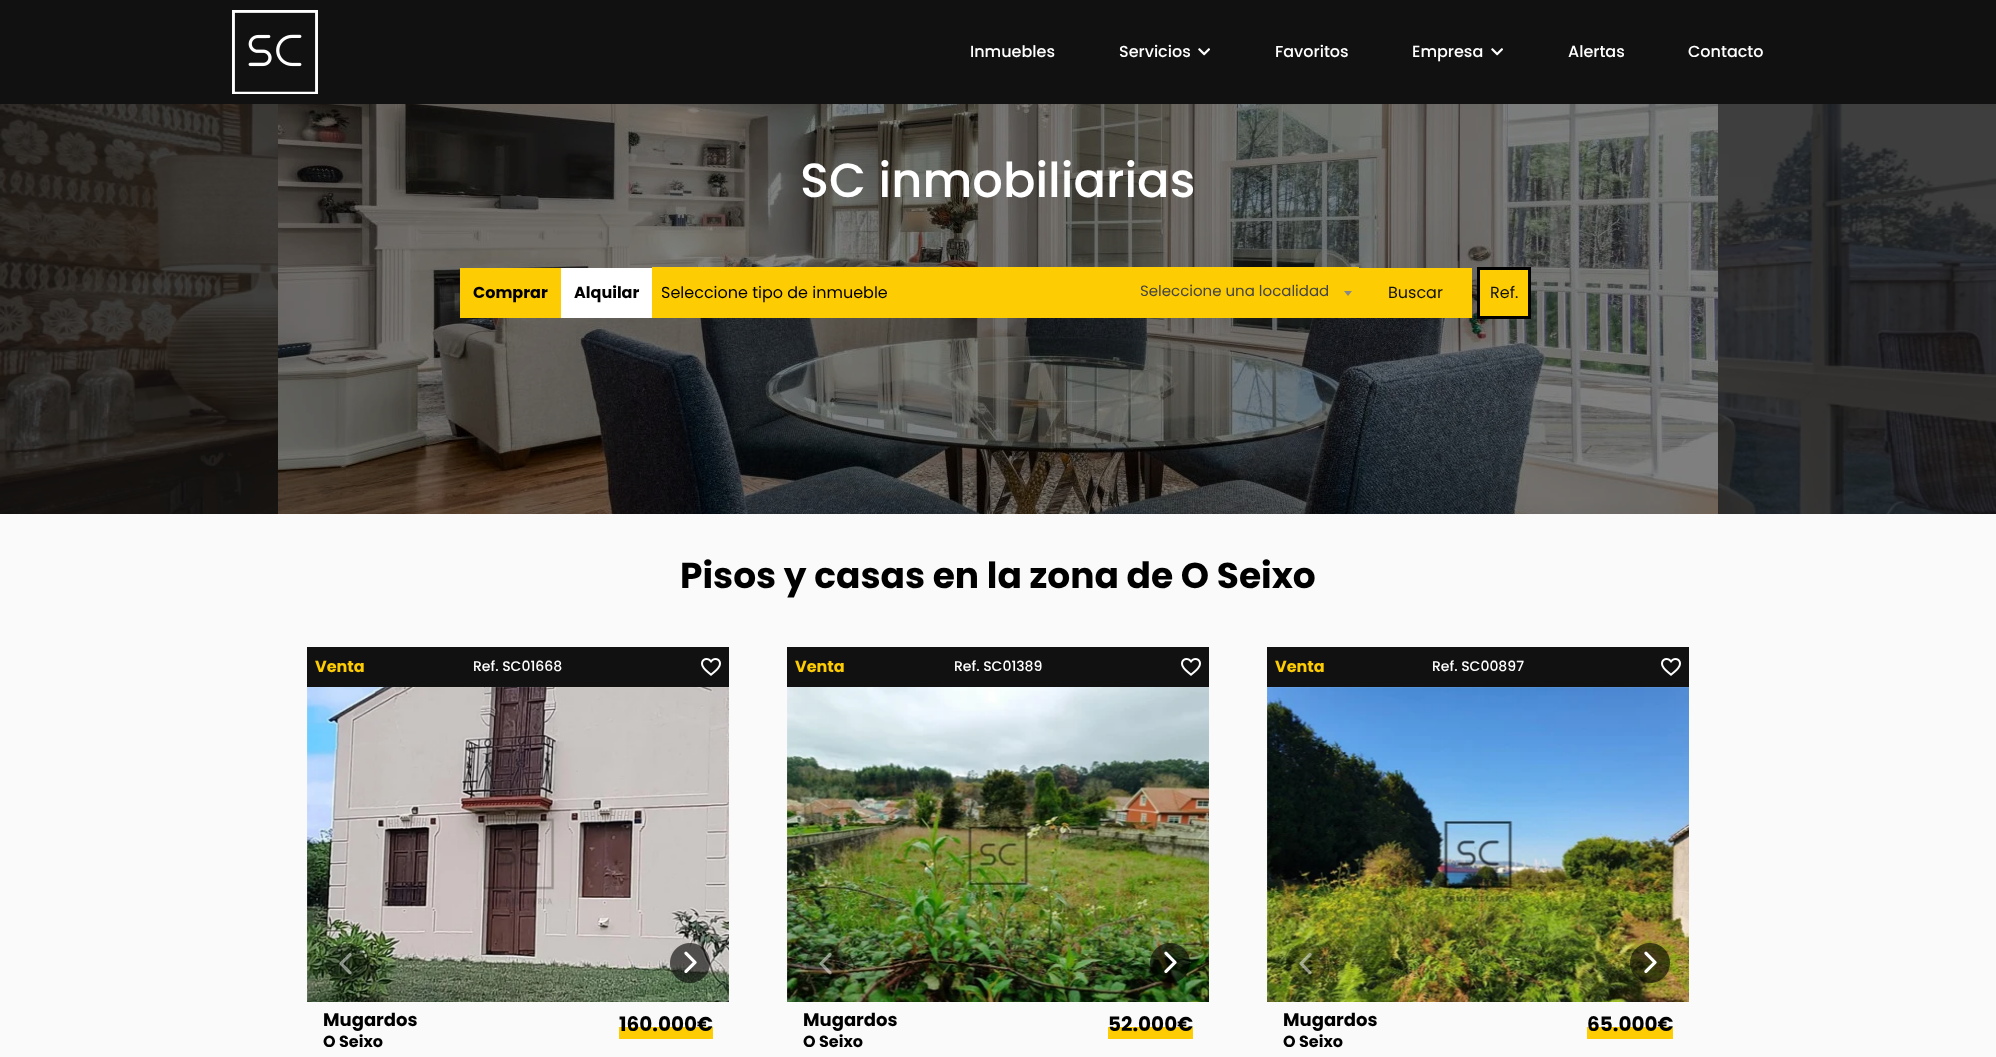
<!DOCTYPE html>
<meta charset="utf-8">
<style>body { margin: 0 } canvas { display: block }</style>
<canvas id="canvas" width="1996" height="1057"></canvas>
<img id="img1" src="images/1.png" hidden>
<img id="img2" src="images/2.png" hidden>
<img id="img3" src="images/3.png" hidden>
<img id="img4" src="images/4.png" hidden>
<img id="img5" src="images/5.png" hidden>
<img id="img6" src="images/6.png" hidden>
<img id="img7" src="images/7.png" hidden>
<img id="img8" src="images/8.png" hidden>
<img id="img9" src="images/9.png" hidden>
<img id="img10" src="images/10.png" hidden>
<img id="img11" src="images/11.png" hidden>
<img id="img12" src="images/12.png" hidden>
<img id="img13" src="images/13.png" hidden>
<img id="img14" src="images/14.png" hidden>
<script>
window.onload = function () {
    const canvas = document.getElementById('canvas');
    const context = canvas.getContext('2d');
    context.miterLimit = 4;
    context.fontKerning = 'normal';

    context.fillStyle = 'rgb(250, 250, 250)';
    context.fillRect(0, 0, 1996, 1057);
    context.fillStyle = 'rgb(17, 17, 17)';
    context.fillRect(0, 0, 1996, 104);
    context.drawImage(document.getElementById('img1'), 232, 10, 86, 84);
    context.drawImage(document.getElementById('img2'), 1198, 48, 12, 8);
    context.drawImage(document.getElementById('img2'), 1491, 48, 12, 8);
    context.drawImage(document.getElementById('img3'), 0, 104, 1996, 410);
    context.drawImage(document.getElementById('img4'), 278, 104, 1440, 410);
    context.fillStyle = 'rgb(253, 204, 3)';
    context.fillRect(460, 268, 101, 50);
    context.fillStyle = 'rgb(255, 255, 255)';
    context.fillRect(561, 268, 91, 50);
    context.fillStyle = 'rgb(253, 204, 3)';
    context.fillRect(652, 267, 707, 51);
    context.fillStyle = 'rgb(136, 136, 136)';
    context.beginPath();
    context.moveTo(1344, 291);
    context.lineTo(1352, 291);
    context.lineTo(1348, 296);
    context.closePath();
    context.fill();
    context.fillStyle = 'rgb(253, 204, 3)';
    context.fillRect(1359, 268, 113, 50);
    context.beginPath();
    context.rect(1478.5, 268.5, 51, 49);
    context.fill();
    context.strokeStyle = 'rgb(0, 0, 0)';
    context.lineWidth = 3;
    context.stroke();
    context.fillStyle = 'rgb(17, 17, 17)';
    context.fillRect(307, 647, 422, 40);
    context.drawImage(document.getElementById('img5'), 701, 658, 20, 18);
    context.drawImage(document.getElementById('img6'), 307, 687, 422, 315);
    context.drawImage(document.getElementById('img7'), 326, 943, 40, 40);
    context.drawImage(document.getElementById('img8'), 670, 943, 40, 40);
    context.fillStyle = 'rgb(253, 204, 3)';
    context.fillRect(619, 1027, 94, 12);
    context.fillStyle = 'rgb(17, 17, 17)';
    context.fillRect(787, 647, 422, 40);
    context.drawImage(document.getElementById('img5'), 1181, 658, 20, 18);
    context.drawImage(document.getElementById('img9'), 787, 687, 422, 315);
    context.drawImage(document.getElementById('img10'), 806, 943, 40, 40);
    context.drawImage(document.getElementById('img11'), 1150, 943, 40, 40);
    context.fillStyle = 'rgb(253, 204, 3)';
    context.fillRect(1108, 1027, 85, 12);
    context.fillStyle = 'rgb(17, 17, 17)';
    context.fillRect(1267, 647, 422, 40);
    context.drawImage(document.getElementById('img5'), 1661, 658, 20, 18);
    context.drawImage(document.getElementById('img12'), 1267, 687, 422, 315);
    context.drawImage(document.getElementById('img13'), 1286, 943, 40, 40);
    context.drawImage(document.getElementById('img14'), 1630, 943, 40, 40);
    context.fillStyle = 'rgb(253, 204, 3)';
    context.fillRect(1587, 1027, 86, 12);
    context.font = '500 16px Poppins';
    context.fillStyle = 'rgb(255, 255, 255)';
    context.fillText('Inmuebles', 970, 57);
    context.fillText('Servicios', 1119, 57);
    context.fillText('Favoritos', 1275, 57);
    context.fillText('Empresa', 1412, 57);
    context.fillText('Alertas', 1568, 57);
    context.fillText('Contacto', 1688, 57);
    context.font = '500 48px Poppins';
    context.fillText('SC inmobiliarias', 800, 197);
    context.font = 'bold 16px Poppins';
    context.fillStyle = 'rgb(0, 0, 0)';
    context.fillText('Comprar', 473, 298);
    context.fillText('Alquilar', 574, 298);
    context.font = '16px Poppins';
    context.fillText('Seleccione tipo de inmueble', 661, 298);
    context.font = '15px Poppins';
    context.fillStyle = 'rgb(68, 68, 68)';
    context.fillText('Seleccione una localidad', 1140, 296);
    context.font = '16px Poppins';
    context.fillStyle = 'rgb(17, 17, 17)';
    context.fillText('Buscar', 1388, 298);
    context.fillText('Ref.', 1490, 298);
    context.font = 'bold 36px Poppins';
    context.fillStyle = 'rgb(0, 0, 0)';
    context.fillText('Pisos y casas en la zona de O Seixo', 680, 588);
    context.font = 'bold 16px Poppins';
    context.fillStyle = 'rgb(253, 204, 3)';
    context.fillText('Venta', 315, 672);
    context.font = '500 14px Poppins';
    context.fillStyle = 'rgb(255, 255, 255)';
    context.fillText('Ref. SC01668', 473, 671);
    context.font = 'bold 18px Poppins';
    context.fillStyle = 'rgb(0, 0, 0)';
    context.fillText('Mugardos', 323, 1026);
    context.font = 'bold 16px Poppins';
    context.fillText('O Seixo', 323, 1047);
    context.font = 'bold 20px Poppins';
    context.fillText('160.000€', 619, 1031);
    context.font = 'bold 16px Poppins';
    context.fillStyle = 'rgb(253, 204, 3)';
    context.fillText('Venta', 795, 672);
    context.font = '500 14px Poppins';
    context.fillStyle = 'rgb(255, 255, 255)';
    context.fillText('Ref. SC01389', 954, 671);
    context.font = 'bold 18px Poppins';
    context.fillStyle = 'rgb(0, 0, 0)';
    context.fillText('Mugardos', 803, 1026);
    context.font = 'bold 16px Poppins';
    context.fillText('O Seixo', 803, 1047);
    context.font = 'bold 20px Poppins';
    context.fillText('52.000€', 1108, 1031);
    context.font = 'bold 16px Poppins';
    context.fillStyle = 'rgb(253, 204, 3)';
    context.fillText('Venta', 1275, 672);
    context.font = '500 14px Poppins';
    context.fillStyle = 'rgb(255, 255, 255)';
    context.fillText('Ref. SC00897', 1432, 671);
    context.font = 'bold 18px Poppins';
    context.fillStyle = 'rgb(0, 0, 0)';
    context.fillText('Mugardos', 1283, 1026);
    context.font = 'bold 16px Poppins';
    context.fillText('O Seixo', 1283, 1047);
    context.font = 'bold 20px Poppins';
    context.fillText('65.000€', 1587, 1031);
};
</script>
